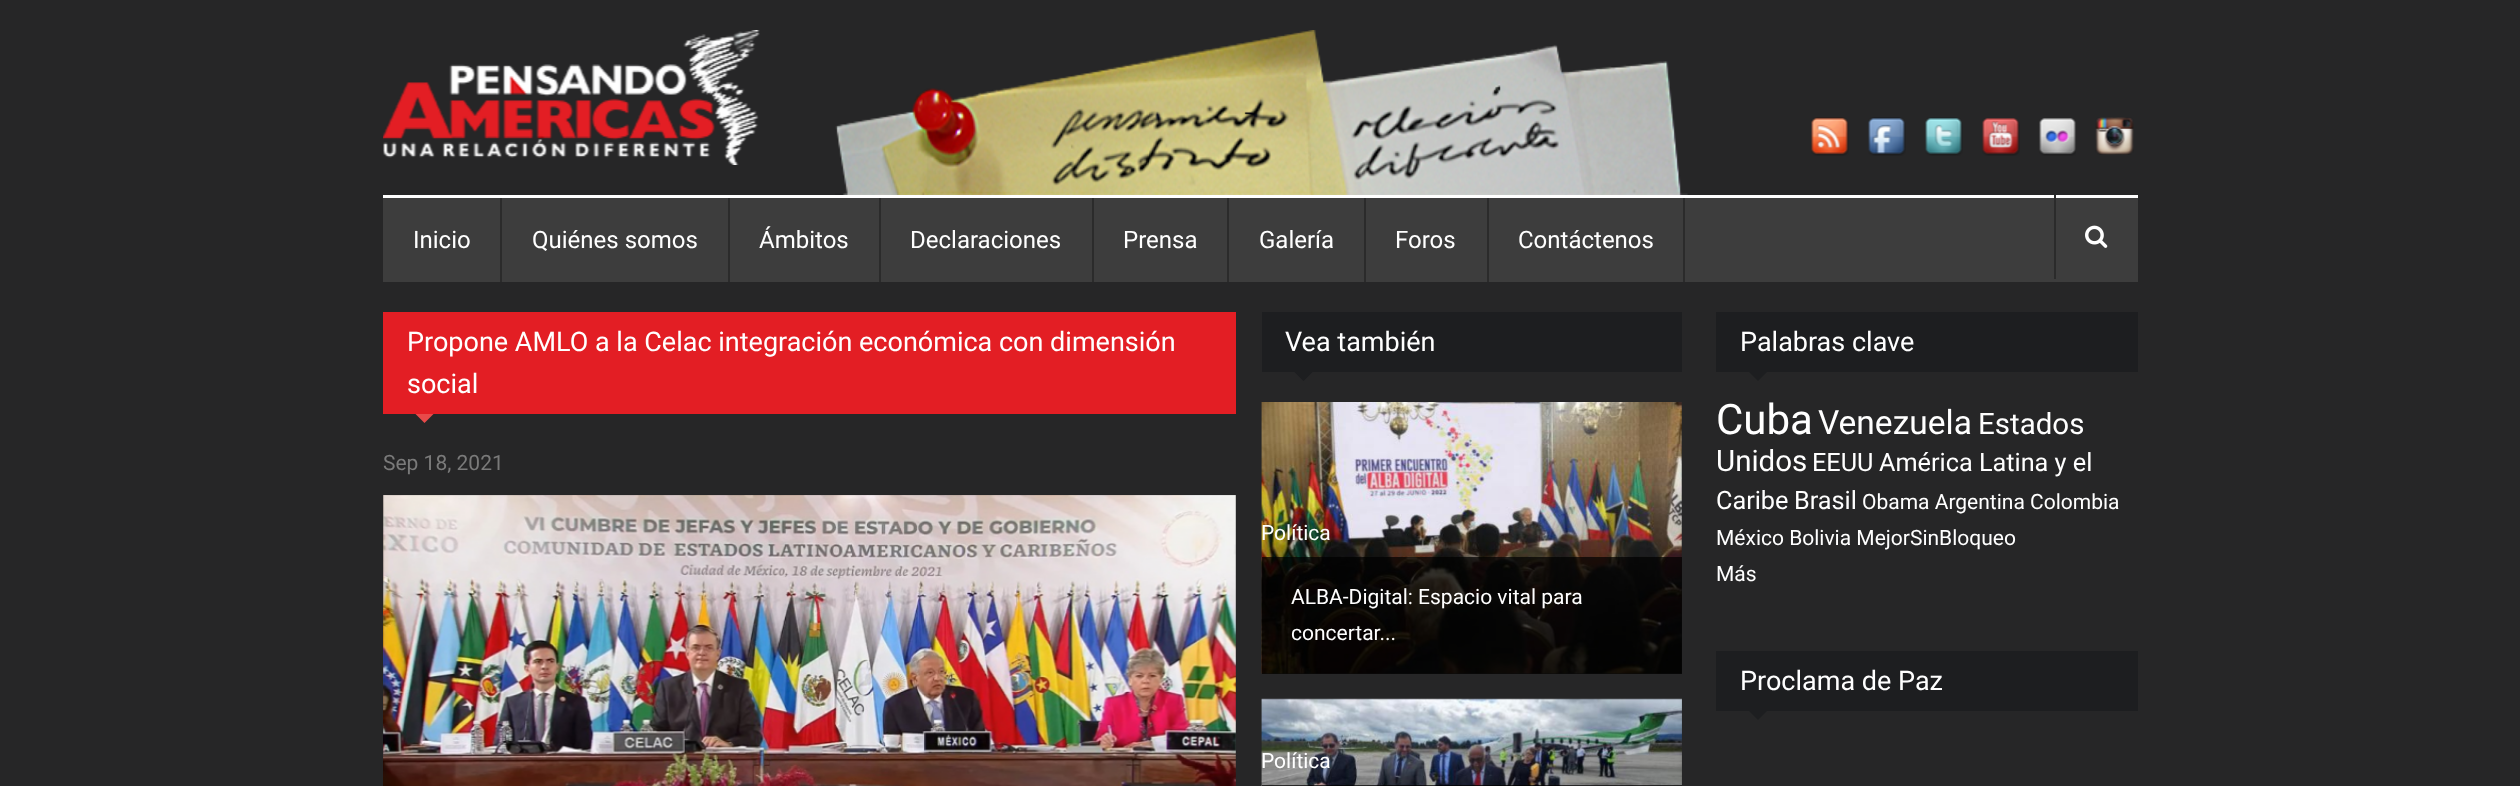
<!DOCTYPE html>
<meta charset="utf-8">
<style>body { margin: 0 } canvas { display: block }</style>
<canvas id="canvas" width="2520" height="786"></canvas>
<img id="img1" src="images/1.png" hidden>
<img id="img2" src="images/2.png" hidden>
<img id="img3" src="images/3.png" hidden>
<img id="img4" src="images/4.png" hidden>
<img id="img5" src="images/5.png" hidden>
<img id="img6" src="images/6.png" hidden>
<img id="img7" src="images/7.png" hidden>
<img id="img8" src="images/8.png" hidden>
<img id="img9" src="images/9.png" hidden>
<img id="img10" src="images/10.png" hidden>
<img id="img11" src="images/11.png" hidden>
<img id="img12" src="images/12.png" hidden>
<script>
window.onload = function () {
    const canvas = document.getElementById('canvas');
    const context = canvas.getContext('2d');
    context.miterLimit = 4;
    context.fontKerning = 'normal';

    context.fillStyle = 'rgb(38, 38, 39)';
    context.fillRect(0, 0, 2520, 786);
    context.drawImage(document.getElementById('img1'), 835, 30, 853, 165);
    context.drawImage(document.getElementById('img2'), 383, 30, 377, 135);
    context.drawImage(document.getElementById('img3'), 1811, 117, 38, 39);
    context.drawImage(document.getElementById('img4'), 1868, 117, 38, 39);
    context.drawImage(document.getElementById('img5'), 1925, 117, 38, 39);
    context.drawImage(document.getElementById('img6'), 1982, 118, 38, 38);
    context.drawImage(document.getElementById('img7'), 2039, 118, 37, 38);
    context.drawImage(document.getElementById('img8'), 2095, 117, 39, 38);
    context.fillStyle = 'rgb(61, 61, 61)';
    context.fillRect(383, 198, 1755, 84);
    context.fillStyle = 'rgb(255, 255, 255)';
    context.fillRect(383, 195, 1755, 3);
    context.fillStyle = 'rgb(43, 43, 43)';
    context.fillRect(500, 198, 2, 84);
    context.fillRect(728, 198, 2, 84);
    context.fillRect(879, 198, 2, 84);
    context.fillRect(1092, 198, 2, 84);
    context.fillRect(1227, 198, 2, 84);
    context.fillRect(1364, 198, 2, 84);
    context.fillRect(1487, 198, 2, 84);
    context.fillRect(1683, 198, 2, 84);
    context.fillRect(2054, 195, 2, 84);
    context.drawImage(document.getElementById('img9'), 2085, 225, 23, 23);
    context.fillStyle = 'rgb(227, 30, 36)';
    context.fillRect(383, 312, 853, 102);
    context.fillStyle = 'rgb(232, 74, 74)';
    context.beginPath();
    context.moveTo(415.5, 414);
    context.lineTo(433.5, 414);
    context.lineTo(424.5, 423);
    context.closePath();
    context.fill();
    context.drawImage(document.getElementById('img10'), 383, 495, 853, 291);
    context.fillStyle = 'rgb(29, 30, 32)';
    context.fillRect(1262, 312, 420, 60);
    context.beginPath();
    context.moveTo(1294.5, 372);
    context.lineTo(1312.5, 372);
    context.lineTo(1303.5, 381);
    context.closePath();
    context.fill();
    context.drawImage(document.getElementById('img11'), 1261, 402, 421, 272);
    context.fillStyle = 'rgba(0, 0, 0, 0.7)';
    context.fillRect(1262, 557, 420, 117);
    context.drawImage(document.getElementById('img12'), 1261, 698, 421, 88);
    context.fillRect(1262, 785, 420, 1);
    context.fillStyle = 'rgb(29, 30, 32)';
    context.fillRect(1716, 312, 422, 60);
    context.beginPath();
    context.moveTo(1749, 372);
    context.lineTo(1767, 372);
    context.lineTo(1758, 381);
    context.closePath();
    context.fill();
    context.fillRect(1716, 651, 422, 60);
    context.beginPath();
    context.moveTo(1749, 711);
    context.lineTo(1767, 711);
    context.lineTo(1758, 720);
    context.closePath();
    context.fill();
    context.font = '24px Roboto';
    context.fillStyle = 'rgb(255, 255, 255)';
    context.fillText('Inicio', 413, 248);
    context.fillText('Quiénes somos', 532, 248);
    context.fillText('Ámbitos', 759, 248);
    context.fillText('Declaraciones', 910, 248);
    context.fillText('Prensa', 1123, 248);
    context.fillText('Galería', 1259, 248);
    context.fillText('Foros', 1395, 248);
    context.fillText('Contáctenos', 1518, 248);
    context.font = '27px Roboto';
    context.fillText('Propone AMLO a la Celac integración económica con dimensión', 407, 351);
    context.fillText('social', 407, 393);
    context.font = '21px Roboto';
    context.fillStyle = 'rgb(122, 122, 122)';
    context.fillText('Sep 18, 2021', 383, 470);
    context.font = '27px Roboto';
    context.fillStyle = 'rgb(255, 255, 255)';
    context.fillText('Vea también', 1285, 351);
    context.font = '21px Roboto';
    context.fillText('Política', 1261, 540);
    context.fillText('ALBA-Digital: Espacio vital para', 1291, 604);
    context.fillText('concertar...', 1291, 640);
    context.fillText('Política', 1261, 768);
    context.font = '27px Roboto';
    context.fillText('Palabras clave', 1740, 351);
    context.font = '42px Roboto';
    context.fillText('Cuba', 1716, 434);
    context.font = '33.5px Roboto';
    context.fillText('Venezuela', 1818, 434);
    context.font = '29.5px Roboto';
    context.fillText('Estados', 1978, 434);
    context.fillText('Unidos', 1716, 471);
    context.font = '25.25px Roboto';
    context.fillText('EEUU', 1812, 471);
    context.fillText('América Latina y el', 1879, 471);
    context.fillText('Caribe', 1716, 509);
    context.fillText('Brasil', 1794, 509);
    context.font = '21px Roboto';
    context.fillText('Obama Argentina Colombia', 1862, 509);
    context.fillText('México Bolivia MejorSinBloqueo', 1716, 545);
    context.fillText('Más', 1716, 581);
    context.font = '27px Roboto';
    context.fillText('Proclama de Paz', 1740, 690);
};
</script>
